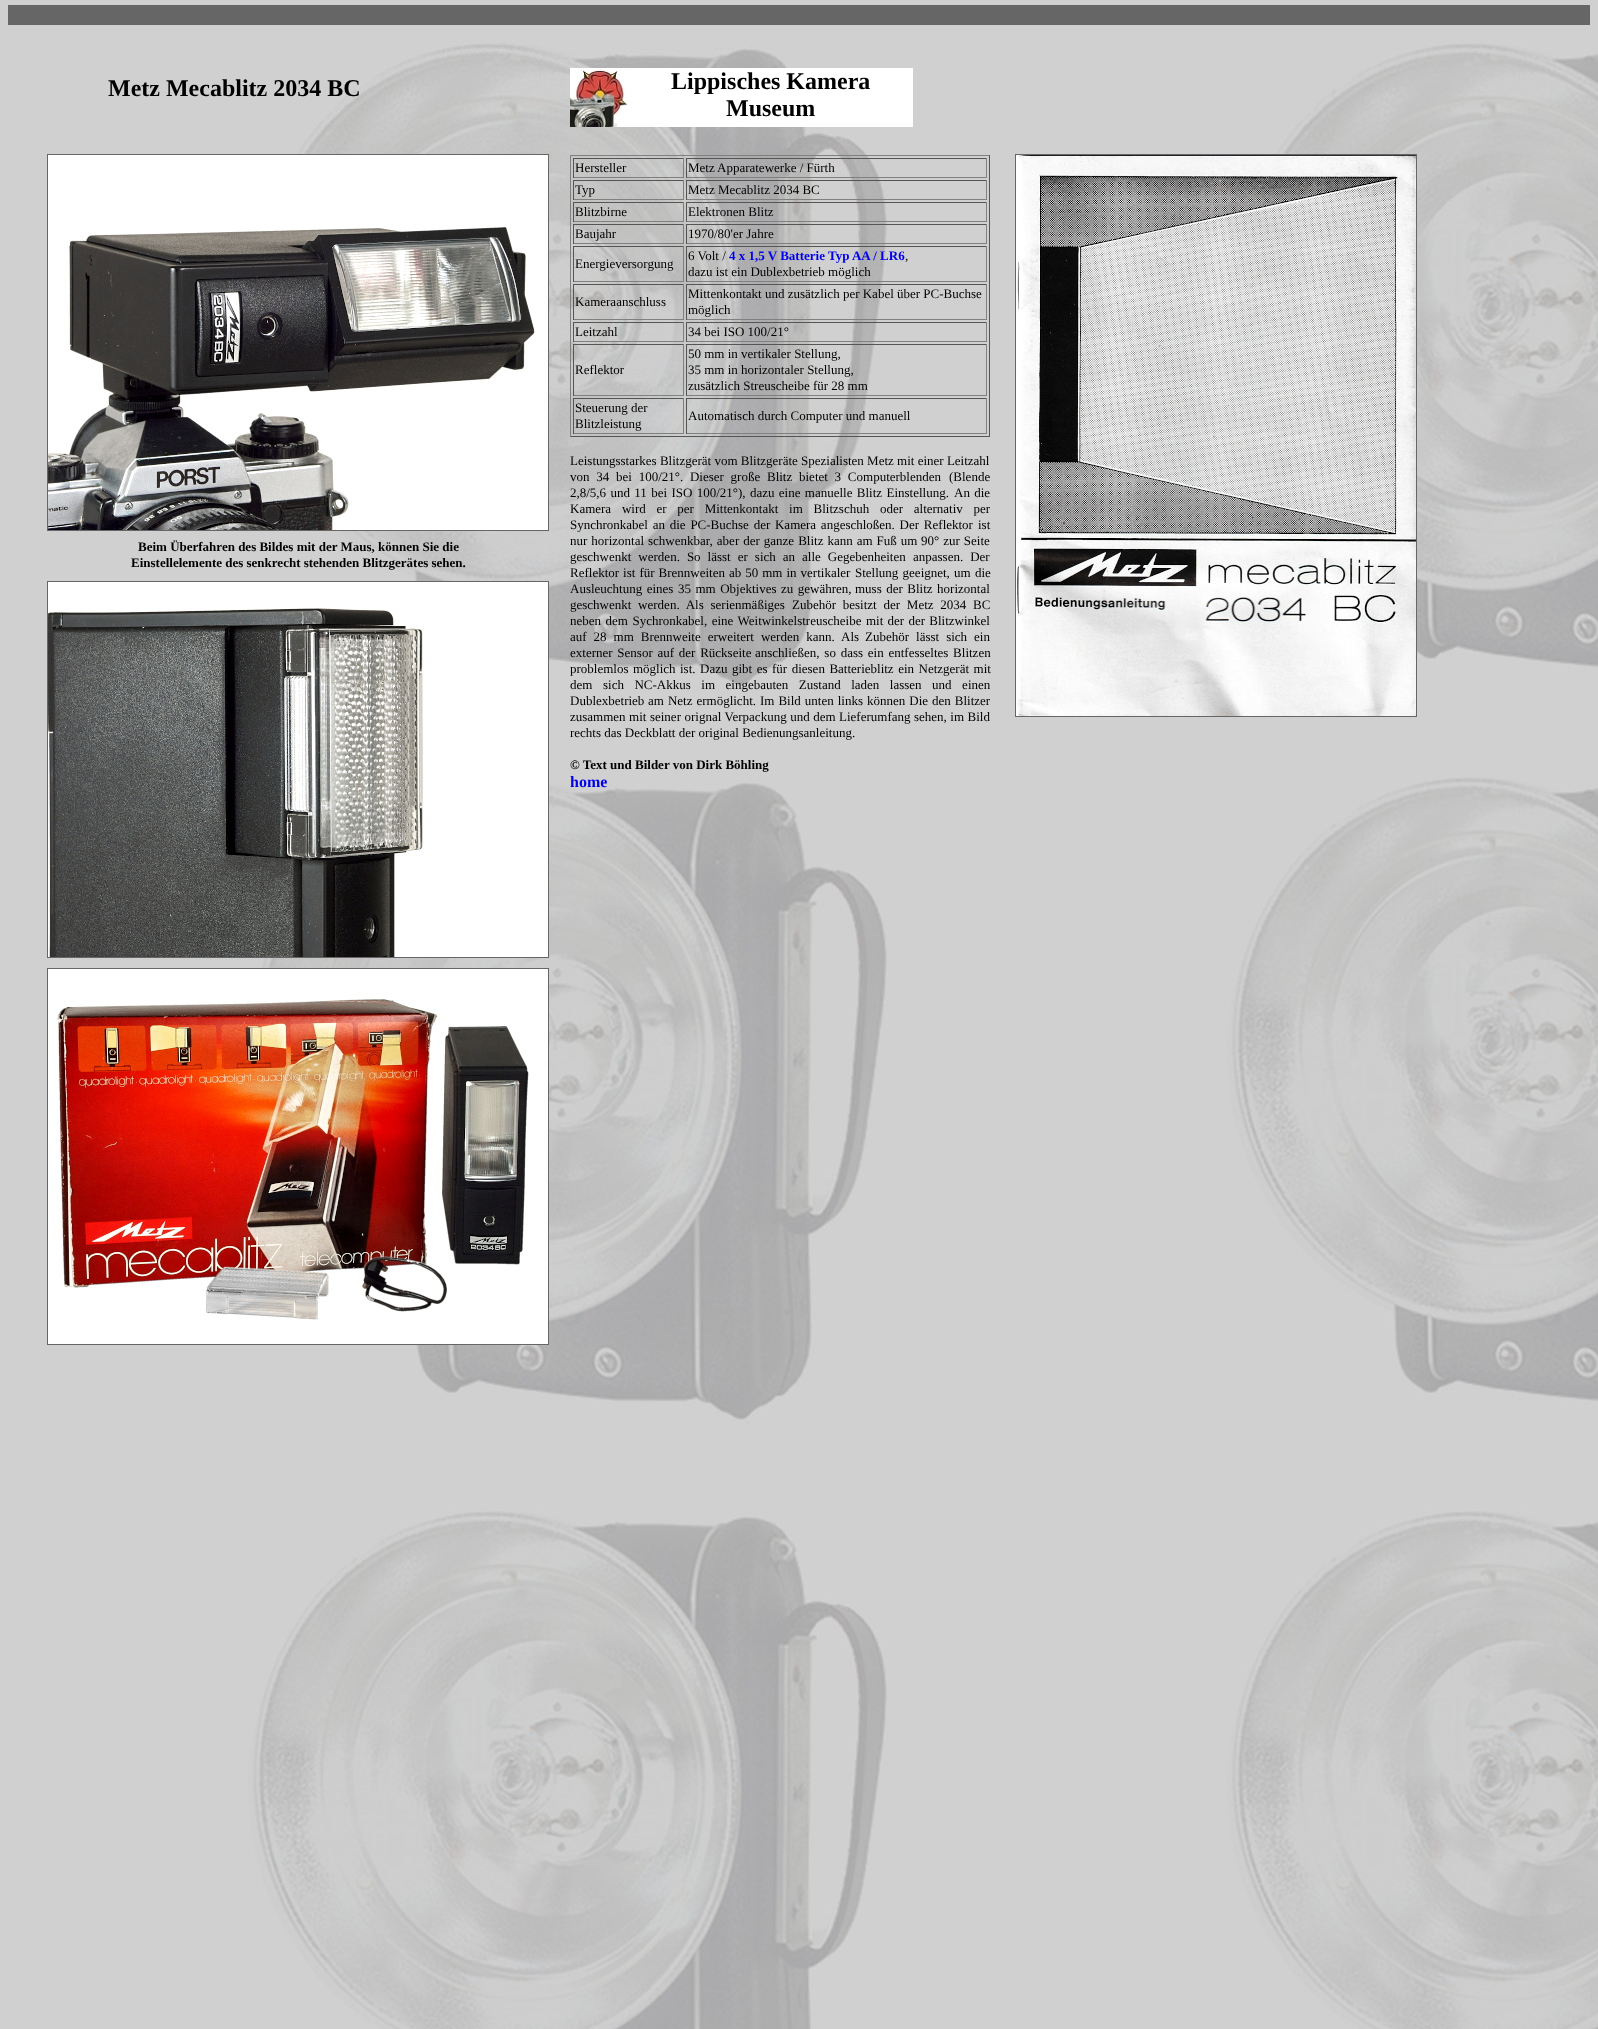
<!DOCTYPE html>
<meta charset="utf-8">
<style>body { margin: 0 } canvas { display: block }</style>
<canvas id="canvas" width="1598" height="2029"></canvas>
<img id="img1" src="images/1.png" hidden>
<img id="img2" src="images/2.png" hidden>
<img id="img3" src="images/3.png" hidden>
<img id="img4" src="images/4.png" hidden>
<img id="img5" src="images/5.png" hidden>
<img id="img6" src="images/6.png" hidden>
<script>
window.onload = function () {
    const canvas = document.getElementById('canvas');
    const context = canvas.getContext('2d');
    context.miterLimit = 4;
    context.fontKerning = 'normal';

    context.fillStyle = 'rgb(255, 255, 255)';
    context.fillRect(0, 0, 1598, 2029);
    context.drawImage(document.getElementById('img1'), 0, 0, 1598, 2029);
    context.fillStyle = 'rgb(102, 102, 102)';
    context.fillRect(8, 5, 1582, 20);
    context.drawImage(document.getElementById('img2'), 570, 68, 59, 59);
    context.fillStyle = 'rgb(255, 255, 255)';
    context.fillRect(629, 68, 284, 59);
    context.fillStyle = 'rgb(102, 102, 102)';
    context.fillRect(47, 154, 502, 377);
    context.fillRect(1015, 154, 402, 563);
    context.drawImage(document.getElementById('img3'), 48, 155, 500, 375);
    context.fillStyle = 'rgb(128, 128, 128)';
    context.fillRect(570, 155, 420, 1);
    context.fillStyle = 'rgb(85, 85, 85)';
    context.fillRect(989, 155, 1, 282);
    context.fillRect(570, 436, 420, 1);
    context.fillStyle = 'rgb(128, 128, 128)';
    context.fillRect(570, 155, 1, 282);
    context.fillStyle = 'rgb(85, 85, 85)';
    context.fillRect(573, 158, 111, 1);
    context.fillStyle = 'rgb(128, 128, 128)';
    context.fillRect(683, 158, 1, 20);
    context.fillRect(573, 177, 111, 1);
    context.fillStyle = 'rgb(85, 85, 85)';
    context.fillRect(573, 158, 1, 20);
    context.fillRect(686, 158, 301, 1);
    context.fillStyle = 'rgb(128, 128, 128)';
    context.fillRect(986, 158, 1, 20);
    context.fillRect(686, 177, 301, 1);
    context.fillStyle = 'rgb(85, 85, 85)';
    context.fillRect(686, 158, 1, 20);
    context.fillRect(573, 180, 111, 1);
    context.fillStyle = 'rgb(128, 128, 128)';
    context.fillRect(683, 180, 1, 20);
    context.fillRect(573, 199, 111, 1);
    context.fillStyle = 'rgb(85, 85, 85)';
    context.fillRect(573, 180, 1, 20);
    context.fillRect(686, 180, 301, 1);
    context.fillStyle = 'rgb(128, 128, 128)';
    context.fillRect(986, 180, 1, 20);
    context.fillRect(686, 199, 301, 1);
    context.fillStyle = 'rgb(85, 85, 85)';
    context.fillRect(686, 180, 1, 20);
    context.fillRect(573, 202, 111, 1);
    context.fillStyle = 'rgb(128, 128, 128)';
    context.fillRect(683, 202, 1, 20);
    context.fillRect(573, 221, 111, 1);
    context.fillStyle = 'rgb(85, 85, 85)';
    context.fillRect(573, 202, 1, 20);
    context.fillRect(686, 202, 301, 1);
    context.fillStyle = 'rgb(128, 128, 128)';
    context.fillRect(986, 202, 1, 20);
    context.fillRect(686, 221, 301, 1);
    context.fillStyle = 'rgb(85, 85, 85)';
    context.fillRect(686, 202, 1, 20);
    context.fillRect(573, 224, 111, 1);
    context.fillStyle = 'rgb(128, 128, 128)';
    context.fillRect(683, 224, 1, 20);
    context.fillRect(573, 243, 111, 1);
    context.fillStyle = 'rgb(85, 85, 85)';
    context.fillRect(573, 224, 1, 20);
    context.fillRect(686, 224, 301, 1);
    context.fillStyle = 'rgb(128, 128, 128)';
    context.fillRect(986, 224, 1, 20);
    context.fillRect(686, 243, 301, 1);
    context.fillStyle = 'rgb(85, 85, 85)';
    context.fillRect(686, 224, 1, 20);
    context.fillRect(573, 246, 111, 1);
    context.fillStyle = 'rgb(128, 128, 128)';
    context.fillRect(683, 246, 1, 36);
    context.fillRect(573, 281, 111, 1);
    context.fillStyle = 'rgb(85, 85, 85)';
    context.fillRect(573, 246, 1, 36);
    context.fillRect(686, 246, 301, 1);
    context.fillStyle = 'rgb(128, 128, 128)';
    context.fillRect(986, 246, 1, 36);
    context.fillRect(686, 281, 301, 1);
    context.fillStyle = 'rgb(85, 85, 85)';
    context.fillRect(686, 246, 1, 36);
    context.fillRect(573, 284, 111, 1);
    context.fillStyle = 'rgb(128, 128, 128)';
    context.fillRect(683, 284, 1, 36);
    context.fillRect(573, 319, 111, 1);
    context.fillStyle = 'rgb(85, 85, 85)';
    context.fillRect(573, 284, 1, 36);
    context.fillRect(686, 284, 301, 1);
    context.fillStyle = 'rgb(128, 128, 128)';
    context.fillRect(986, 284, 1, 36);
    context.fillRect(686, 319, 301, 1);
    context.fillStyle = 'rgb(85, 85, 85)';
    context.fillRect(686, 284, 1, 36);
    context.fillRect(573, 322, 111, 1);
    context.fillStyle = 'rgb(128, 128, 128)';
    context.fillRect(683, 322, 1, 20);
    context.fillRect(573, 341, 111, 1);
    context.fillStyle = 'rgb(85, 85, 85)';
    context.fillRect(573, 322, 1, 20);
    context.fillRect(686, 322, 301, 1);
    context.fillStyle = 'rgb(128, 128, 128)';
    context.fillRect(986, 322, 1, 20);
    context.fillRect(686, 341, 301, 1);
    context.fillStyle = 'rgb(85, 85, 85)';
    context.fillRect(686, 322, 1, 20);
    context.fillRect(573, 344, 111, 1);
    context.fillStyle = 'rgb(128, 128, 128)';
    context.fillRect(683, 344, 1, 52);
    context.fillRect(573, 395, 111, 1);
    context.fillStyle = 'rgb(85, 85, 85)';
    context.fillRect(573, 344, 1, 52);
    context.fillRect(686, 344, 301, 1);
    context.fillStyle = 'rgb(128, 128, 128)';
    context.fillRect(986, 344, 1, 52);
    context.fillRect(686, 395, 301, 1);
    context.fillStyle = 'rgb(85, 85, 85)';
    context.fillRect(686, 344, 1, 52);
    context.fillRect(573, 398, 111, 1);
    context.fillStyle = 'rgb(128, 128, 128)';
    context.fillRect(683, 398, 1, 36);
    context.fillRect(573, 433, 111, 1);
    context.fillStyle = 'rgb(85, 85, 85)';
    context.fillRect(573, 398, 1, 36);
    context.fillRect(686, 398, 301, 1);
    context.fillStyle = 'rgb(128, 128, 128)';
    context.fillRect(986, 398, 1, 36);
    context.fillRect(686, 433, 301, 1);
    context.fillStyle = 'rgb(85, 85, 85)';
    context.fillRect(686, 398, 1, 36);
    context.drawImage(document.getElementById('img4'), 1016, 155, 400, 561);
    context.fillStyle = 'rgb(102, 102, 102)';
    context.fillRect(47, 581, 502, 377);
    context.drawImage(document.getElementById('img5'), 48, 582, 500, 375);
    context.fillRect(47, 968, 502, 377);
    context.drawImage(document.getElementById('img6'), 48, 969, 500, 375);
    context.font = 'bold 24px Liberation Serif';
    context.fillStyle = 'rgb(0, 0, 0)';
    context.fillText('Metz Mecablitz 2034 BC', 108, 96);
    context.fillText('Lippisches Kamera', 671, 89);
    context.fillText('Museum', 726, 116);
    context.font = '13px Liberation Serif';
    context.fillText('Hersteller', 575, 172);
    context.fillText('Metz', 688, 172);
    context.fillText('Apparatewerke / Fürth', 717, 172);
    context.fillText('Typ', 575, 194);
    context.fillText('Metz Mecablitz 2034 BC', 688, 194);
    context.fillText('Blitzbirne', 575, 216);
    context.fillText('Elektronen Blitz', 688, 216);
    context.fillText('Baujahr', 575, 238);
    context.fillText('1970/80\'er Jahre', 688, 238);
    context.fillText('Energieversorgung', 575, 268);
    context.fillText('6 Volt /', 688, 260);
    context.font = 'bold 13px Liberation Serif';
    context.fillStyle = 'rgb(0, 0, 238)';
    context.fillText('4 x 1,5 V Batterie Typ AA / LR6', 729, 260);
    context.font = '13px Liberation Serif';
    context.fillStyle = 'rgb(0, 0, 0)';
    context.fillText(',', 905, 260);
    context.fillText('dazu ist ein Dublexbetrieb möglich', 688, 276);
    context.fillText('Kameraanschluss', 575, 306);
    context.fillText('Mittenkontakt und zusätzlich per Kabel über PC-Buchse', 688, 298);
    context.fillText('möglich', 688, 314);
    context.fillText('Leitzahl', 575, 336);
    context.fillText('34 bei ISO 100/21°', 688, 336);
    context.fillText('Reflektor', 575, 374);
    context.fillText('50 mm in vertikaler Stellung,', 688, 358);
    context.fillText('35 mm in horizontaler Stellung,', 688, 374);
    context.fillText('zusätzlich Streuscheibe für 28 mm', 688, 390);
    context.fillText('Steuerung der', 575, 412);
    context.fillText('Blitzleistung', 575, 428);
    context.fillText('Automatisch durch Computer und manuell', 688, 420);
    context.fillText('Leistungsstarkes Blitzgerät vom Blitzgeräte Spezialisten Metz mit einer Leitzahl', 570, 465);
    context.wordSpacing = '3.5px';
    context.fillText('von 34 bei 100/21°. Dieser große Blitz bietet 3 Computerblenden', 570, 481);
    context.wordSpacing = '0px';
    context.fillText('(Blende', 949, 481);
    context.wordSpacing = '1.1px';
    context.fillText('2,8/5,6 und 11 bei ISO 100/21°), dazu eine manuelle Blitz Einstellung.', 570, 497);
    context.wordSpacing = '1px';
    context.fillText('An die', 954, 497);
    context.wordSpacing = '7.5px';
    context.fillText('Kamera wird er per Mittenkontakt im Blitzschuh oder alternativ per', 570, 513);
    context.wordSpacing = '1.5px';
    context.fillText('Synchronkabel an die PC-Buchse der Kamera angeschloßen. Der Reflektor', 570, 529);
    context.wordSpacing = '0px';
    context.fillText('ist', 978, 529);
    context.wordSpacing = '0.75px';
    context.fillText('nur horizontal schwenkbar, aber der ganze Blitz kann am Fuß um', 570, 545);
    context.fillText('90° zur Seite', 921, 545);
    context.wordSpacing = '3.75px';
    context.fillText('geschwenkt werden. So lässt er sich an alle Gegebenheiten', 570, 561);
    context.fillText('anpassen. Der', 913, 561);
    context.wordSpacing = '0.75px';
    context.fillText('Reflektor ist für Brennweiten ab 50 mm in vertikaler', 570, 577);
    context.wordSpacing = '1px';
    context.fillText('Stellung geeignet, um die', 855, 577);
    context.wordSpacing = '1.25px';
    context.fillText('Ausleuchtung eines 35 mm Objektives zu gewähren,', 570, 593);
    context.fillText('muss der Blitz horizontal', 855, 593);
    context.wordSpacing = '3.5px';
    context.fillText('geschwenkt werden. Als serienmäßiges', 570, 609);
    context.fillText('Zubehör besitzt der Metz 2034 BC', 792, 609);
    context.wordSpacing = '1.25px';
    context.fillText('neben dem Sychronkabel, eine Weitwinkelstreuscheibe', 570, 625);
    context.wordSpacing = '1px';
    context.fillText('mit der der Blitzwinkel', 866, 625);
    context.wordSpacing = '3.75px';
    context.fillText('auf 28 mm Brennweite erweitert werden kann. Als', 570, 641);
    context.fillText('Zubehör lässt sich ein', 865, 641);
    context.wordSpacing = '1.5px';
    context.fillText('externer Sensor auf der Rückseite', 570, 657);
    context.fillText('anschließen, so dass ein entfesseltes Blitzen', 755, 657);
    context.wordSpacing = '1.25px';
    context.fillText('problemlos möglich', 570, 673);
    context.fillText('ist. Dazu gibt es für diesen Batterieblitz ein Netzgerät mit', 680, 673);
    context.wordSpacing = '0px';
    context.fillText('dem', 570, 689);
    context.wordSpacing = '7.25px';
    context.fillText('sich NC-Akkus im eingebauten Zustand laden lassen und einen', 603, 689);
    context.wordSpacing = '0px';
    context.fillText('Dublexbetrieb', 570, 705);
    context.wordSpacing = '0.75px';
    context.fillText('am Netz ermöglicht. Im Bild unten links können Die den Blitzer', 648, 705);
    context.wordSpacing = '0.25px';
    context.fillText('zusammen mit seiner orignal Verpackung und dem Lieferumfang sehen, im Bild', 570, 721);
    context.wordSpacing = '0px';
    context.fillText('rechts das Deckblatt der original Bedienungsanleitung.', 570, 737);
    context.font = 'bold 13px Liberation Serif';
    context.fillText('© Text und Bilder von Dirk Böhling', 570, 769);
    context.font = 'bold 16px Liberation Serif';
    context.fillStyle = 'rgb(0, 0, 238)';
    context.fillText('home', 570, 787);
    context.font = 'bold 13px Liberation Serif';
    context.fillStyle = 'rgb(0, 0, 0)';
    context.fillText('Beim Überfahren des Bildes mit der Maus, können Sie die', 138, 551);
    context.fillText('Einstellelemente des senkrecht stehenden Blitzgerätes sehen.', 131, 567);
};
</script>
